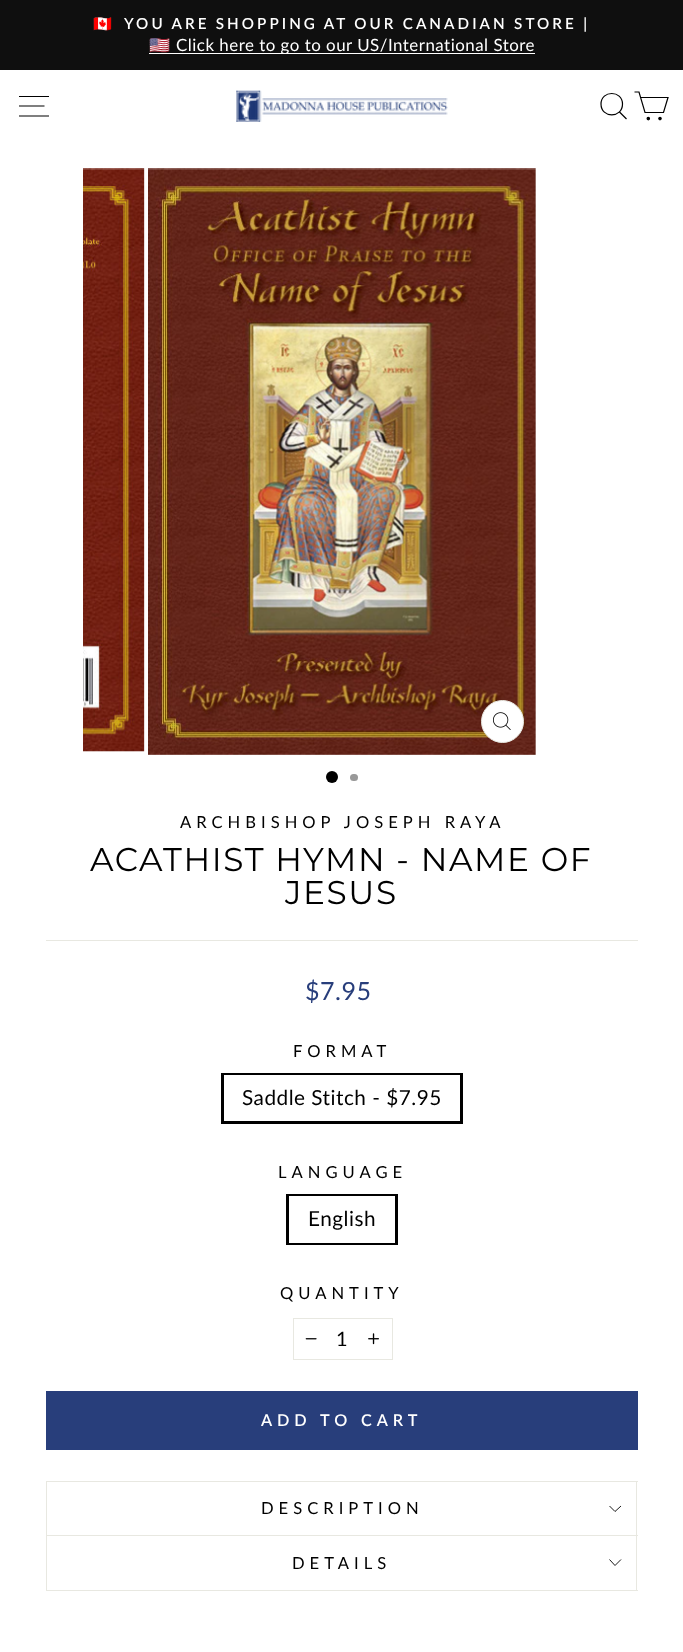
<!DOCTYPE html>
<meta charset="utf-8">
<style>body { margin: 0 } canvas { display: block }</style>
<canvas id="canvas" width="683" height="1652"></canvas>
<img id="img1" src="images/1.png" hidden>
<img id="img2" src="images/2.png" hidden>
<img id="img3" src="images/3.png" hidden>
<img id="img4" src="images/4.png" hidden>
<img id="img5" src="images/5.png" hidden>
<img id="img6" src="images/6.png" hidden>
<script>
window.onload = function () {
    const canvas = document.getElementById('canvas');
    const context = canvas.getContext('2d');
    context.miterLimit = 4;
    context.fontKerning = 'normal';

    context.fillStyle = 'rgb(255, 255, 255)';
    context.fillRect(0, 0, 683, 1652);
    context.fillStyle = 'rgb(15, 15, 15)';
    context.fillRect(0, 0, 683, 70);
    context.fillStyle = 'rgb(255, 255, 255)';
    context.fillRect(149, 53, 386, 1);
    context.fillStyle = 'rgba(0, 0, 0, 0.2)';
    context.filter = 'blur(0.5px)';
    context.beginPath();
    context.rect(0, 70, 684, 74);
    context.fill();
    context.filter = 'none';
    context.fillStyle = 'rgb(255, 255, 255)';
    context.fillRect(0, 70, 683, 74);
    context.beginPath();
    context.moveTo(19, 96.5);
    context.lineTo(49, 96.5);
    context.moveTo(19, 106);
    context.lineTo(44.5, 106);
    context.moveTo(19, 116);
    context.lineTo(49, 116);
    context.strokeStyle = 'rgb(0, 0, 0)';
    context.lineWidth = 1.2;
    context.stroke();
    context.drawImage(document.getElementById('img1'), 236, 90, 212, 32);
    context.beginPath();
    context.moveTo(622.5, 104);
    context.bezierCurveTo(622.5, 118.5, 601, 118.5, 601, 104);
    context.bezierCurveTo(601, 90, 622.5, 90, 622.5, 104);
    context.closePath();
    context.moveTo(626.5, 119);
    context.lineTo(619.5, 112);
    context.stroke();
    context.beginPath();
    context.moveTo(640.5, 97.5);
    context.lineTo(668, 97.5);
    context.lineTo(663.5, 112.5);
    context.lineTo(645, 112.5);
    context.lineTo(639, 92);
    context.lineTo(634.5, 92);
    context.stroke();
    context.fillStyle = 'rgb(0, 0, 0)';
    context.beginPath();
    context.arc(648.3, 118.6, 1.2, 0, 2 * Math.PI);
    context.fill();
    context.stroke();
    context.beginPath();
    context.arc(660, 118.6, 1.2, 0, 2 * Math.PI);
    context.fill();
    context.stroke();
    context.drawImage(document.getElementById('img2'), 83, 168, 62, 584);
    context.drawImage(document.getElementById('img3'), 148, 168, 388, 587);
    context.fillStyle = 'rgb(255, 255, 255)';
    context.beginPath();
    context.arc(502.5, 721.5, 21, 0, 2 * Math.PI);
    context.fill();
    context.strokeStyle = 'rgb(232, 232, 225)';
    context.lineWidth = 1;
    context.stroke();
    context.drawImage(document.getElementById('img4'), 493, 712, 18, 18);
    context.fillStyle = 'rgb(0, 0, 0)';
    context.beginPath();
    context.arc(332, 777, 6, 0, 2 * Math.PI);
    context.fill();
    context.fillStyle = 'rgb(153, 153, 153)';
    context.beginPath();
    context.roundRect(350, 774, 8, 7, 3.5);
    context.fill();
    context.fillStyle = 'rgb(232, 232, 225)';
    context.fillRect(46, 940, 592, 1);
    context.strokeStyle = 'rgb(0, 0, 0)';
    context.lineWidth = 3;
    context.strokeRect(222.5, 1074.5, 239, 48);
    context.fillStyle = 'rgb(255, 255, 255)';
    context.fillRect(224, 1075, 236, 1);
    context.strokeRect(287.5, 1195.5, 109, 48);
    context.fillRect(289, 1196, 106, 47);
    context.strokeStyle = 'rgb(232, 232, 225)';
    context.lineWidth = 1;
    context.strokeRect(293.5, 1318.5, 99, 41);
    context.drawImage(document.getElementById('img5'), 305, 1338, 12, 2);
    context.drawImage(document.getElementById('img6'), 368, 1333, 11, 12);
    context.fillStyle = 'rgb(40, 62, 123)';
    context.fillRect(46, 1391, 592, 59);
    context.fillStyle = 'rgb(232, 232, 225)';
    context.fillRect(46, 1535, 592, 1);
    context.fillRect(46, 1481, 592, 1);
    context.fillRect(636, 1481, 1, 54);
    context.fillRect(46, 1481, 1, 54);
    context.beginPath();
    context.moveTo(609.5, 1506);
    context.lineTo(615, 1511.5);
    context.lineTo(621, 1506);
    context.strokeStyle = 'rgb(0, 0, 0)';
    context.lineWidth = 0.9;
    context.stroke();
    context.fillRect(46, 1590, 592, 1);
    context.fillRect(636, 1536, 1, 54);
    context.fillRect(46, 1536, 1, 54);
    context.beginPath();
    context.moveTo(609.5, 1559.5);
    context.lineTo(615, 1565.5);
    context.lineTo(621, 1559.5);
    context.stroke();
    context.letterSpacing = '3.05px';
    context.font = 'bold 15.2px Noto Color Emoji';
    context.fillStyle = 'rgb(255, 255, 255)';
    context.fillText('🇨🇦', 93, 29);
    context.wordSpacing = '-0.5px';
    context.font = '600 15.2px Lato';
    context.fillText('YOU ARE SHOPPING AT OUR CANADIAN STORE |', 124, 29);
    context.letterSpacing = '0.5px';
    context.wordSpacing = '0px';
    context.font = '16.9px Noto Color Emoji';
    context.fillText('🇺🇸', 149, 51);
    context.font = '16.9px Lato';
    context.fillText('Click here to go to our US/International Store', 176, 51);
    context.letterSpacing = '5px';
    context.font = '16.6px Lato';
    context.fillStyle = 'rgb(0, 0, 0)';
    context.fillText('ARCHBISHOP JOSEPH RAYA', 180, 828);
    context.letterSpacing = '1.6px';
    context.font = '32.8px Montserrat';
    context.fillText('ACATHIST HYMN - NAME OF', 90, 871);
    context.fillText('JESUS', 285, 904);
    context.letterSpacing = '0.5px';
    context.font = '25px Lato';
    context.fillStyle = 'rgb(40, 62, 123)';
    context.fillText('$7.95', 305, 1000);
    context.letterSpacing = '5px';
    context.font = '16.6px Lato';
    context.fillStyle = 'rgb(0, 0, 0)';
    context.fillText('FORMAT', 293, 1057);
    context.letterSpacing = '0.5px';
    context.font = '20.75px Lato';
    context.fillText('Saddle Stitch - $7.95', 242, 1105);
    context.letterSpacing = '5px';
    context.font = '16.6px Lato';
    context.fillText('LANGUAGE', 278, 1178);
    context.letterSpacing = '0.5px';
    context.font = '20.75px Lato';
    context.fillText('English', 308, 1226);
    context.letterSpacing = '5px';
    context.font = '16.6px Lato';
    context.fillText('QUANTITY', 280, 1299);
    context.letterSpacing = '0px';
    context.font = '20px Lato';
    context.fillText('1', 336, 1346);
    context.letterSpacing = '4.9px';
    context.font = '600 16.25px Lato';
    context.fillStyle = 'rgb(255, 255, 255)';
    context.fillText('ADD TO CART', 261, 1426);
    context.letterSpacing = '5px';
    context.font = '16.6px Lato';
    context.fillStyle = 'rgb(0, 0, 0)';
    context.fillText('DESCRIPTION', 261, 1514);
    context.fillText('DETAILS', 292, 1569);
};
</script>
